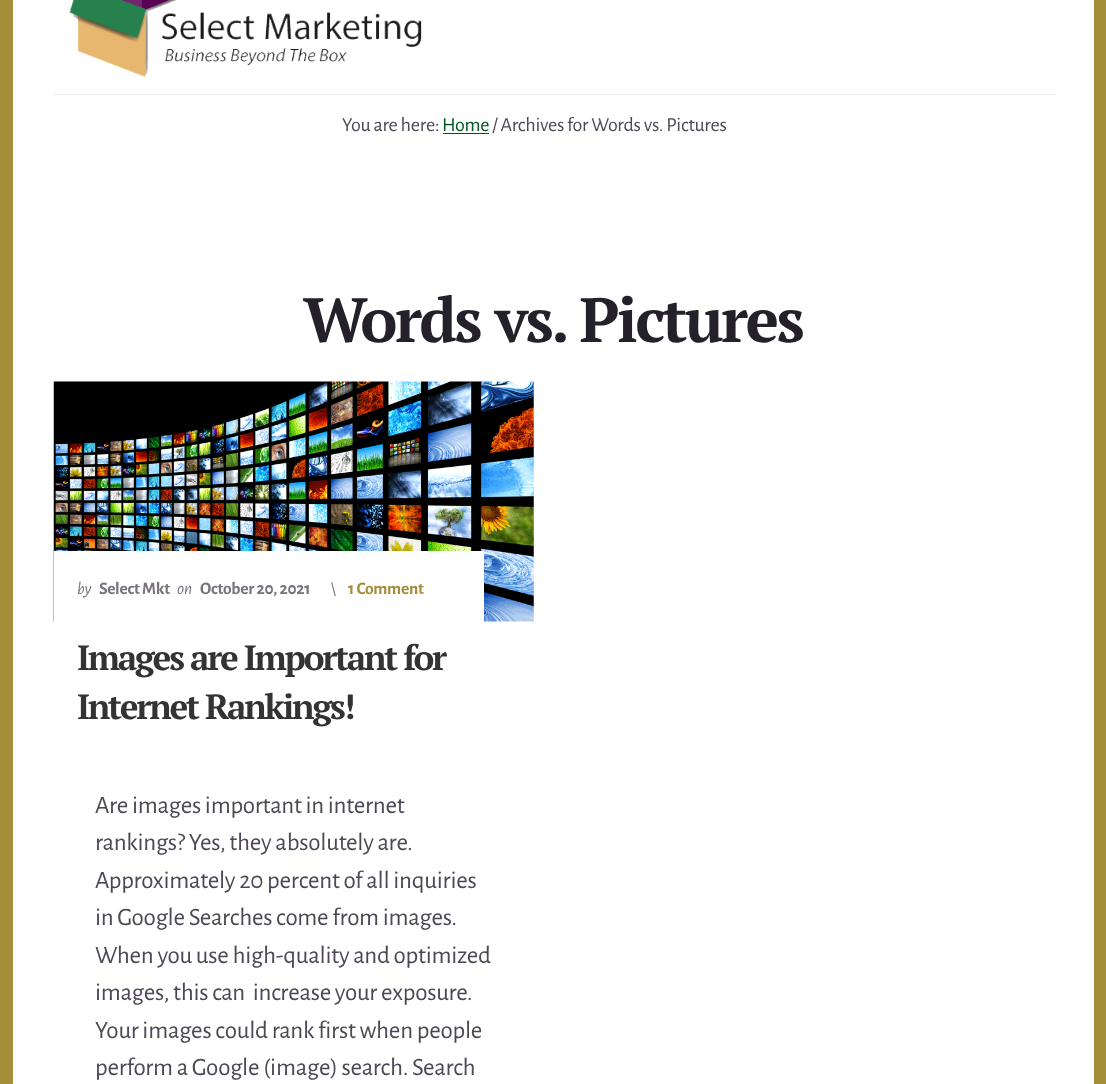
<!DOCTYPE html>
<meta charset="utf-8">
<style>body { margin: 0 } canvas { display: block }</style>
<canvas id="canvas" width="1106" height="1084"></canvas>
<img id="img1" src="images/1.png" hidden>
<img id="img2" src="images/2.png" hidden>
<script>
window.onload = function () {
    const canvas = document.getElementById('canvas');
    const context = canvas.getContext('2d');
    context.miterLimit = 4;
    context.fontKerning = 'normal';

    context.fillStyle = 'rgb(165, 142, 58)';
    context.fillRect(0, 0, 1106, 1084);
    context.fillStyle = 'rgb(255, 255, 255)';
    context.fillRect(13, 0, 1081, 1084);
    context.fillStyle = 'rgb(237, 236, 238)';
    context.fillRect(54, 94, 1000, 1);
    context.drawImage(document.getElementById('img1'), 69, 0, 353, 78);
    context.fillStyle = 'rgb(0, 84, 25)';
    context.fillRect(443, 133, 46, 1);
    context.drawImage(document.getElementById('img2'), 53, 381, 481, 241);
    context.fillStyle = 'rgb(255, 255, 255)';
    context.fillRect(54, 551, 430, 71);
    context.letterSpacing = '-0.25px';
    context.font = '20px Alegreya Sans';
    context.fillStyle = 'rgb(78, 71, 86)';
    context.fillText('You are here:', 342, 131);
    context.fillStyle = 'rgb(0, 84, 25)';
    context.fillText('Home', 442, 131);
    context.fillStyle = 'rgb(78, 71, 86)';
    context.fillText('/ Archives for Words vs. Pictures', 492, 131);
    context.letterSpacing = '-2.5px';
    context.font = 'bold 62.5px PT Serif';
    context.fillStyle = 'rgb(37, 33, 42)';
    context.fillText('Words vs. Pictures', 303, 342);
    context.letterSpacing = '-0.25px';
    context.font = 'italic 17.5px Alegreya Sans';
    context.fillStyle = 'rgb(120, 115, 125)';
    context.fillText('by', 77, 594);
    context.font = 'bold 17.5px Alegreya Sans';
    context.fillText('Select Mkt', 99, 594);
    context.font = 'italic 17.5px Alegreya Sans';
    context.fillText('on', 177, 594);
    context.font = 'bold 17.5px Alegreya Sans';
    context.fillText('October 20, 2021', 200, 594);
    context.font = '17.5px Alegreya Sans';
    context.fillText('\\', 331, 594);
    context.font = 'bold 17.5px Alegreya Sans';
    context.fillStyle = 'rgb(165, 142, 58)';
    context.fillText('1 Comment', 348, 594);
    context.letterSpacing = '-2.25px';
    context.font = 'bold 35px PT Serif';
    context.fillStyle = 'rgb(51, 51, 51)';
    context.fillText('Images are Important for', 77, 670);
    context.fillText('Internet Rankings!', 77, 719);
    context.letterSpacing = '-0.25px';
    context.font = '25px Alegreya Sans';
    context.fillStyle = 'rgb(78, 71, 86)';
    context.fillText('Are images important in internet', 95, 813);
    context.fillText('rankings? Yes, they absolutely are.', 95, 850);
    context.fillText('Approximately 20 percent of all inquiries', 95, 888);
    context.fillText('in Google Searches come from images.', 95, 925);
    context.fillText('When you use high-quality and optimized', 95, 963);
    context.fillText('images, this can  increase your exposure.', 95, 1000);
    context.fillText('Your images could rank first when people', 95, 1038);
    context.fillText('perform a Google (image) search. Search', 95, 1075);
};
</script>
